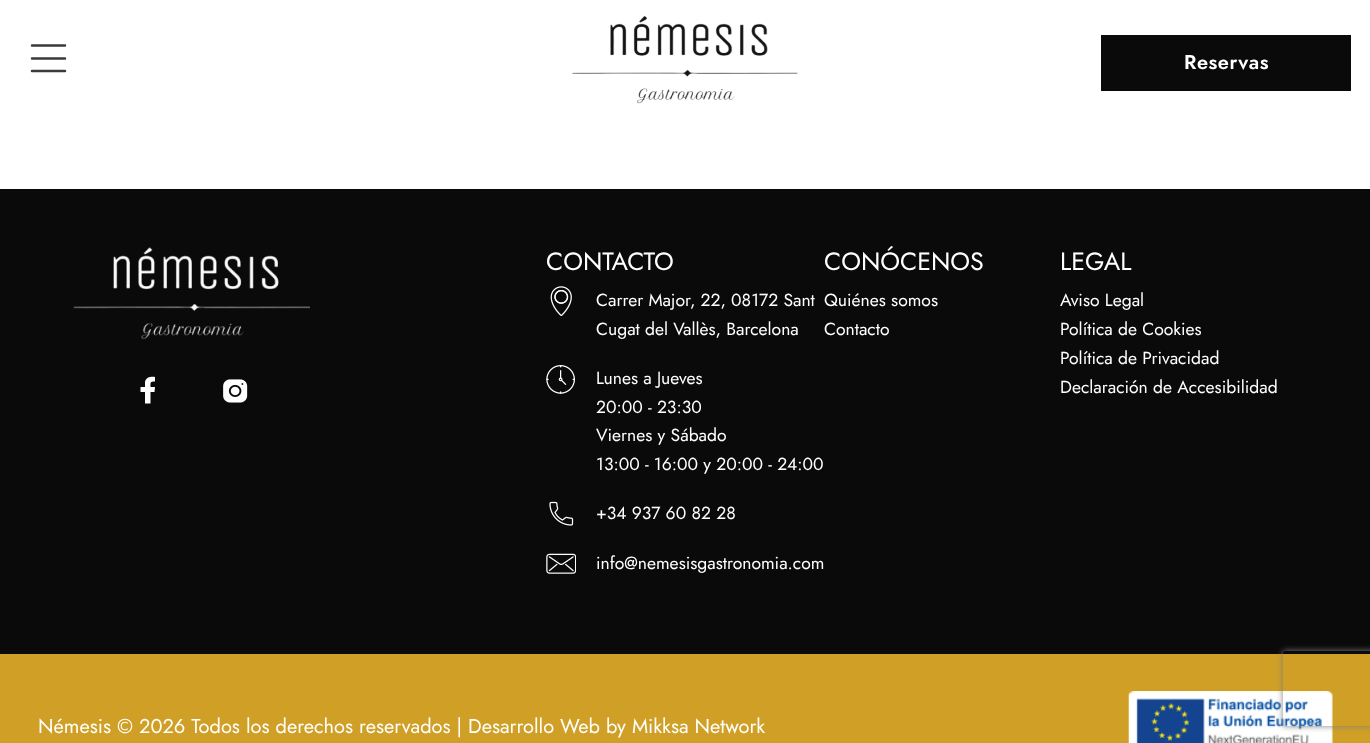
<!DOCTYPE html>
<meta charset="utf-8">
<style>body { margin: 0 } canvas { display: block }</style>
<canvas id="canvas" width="1370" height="743"></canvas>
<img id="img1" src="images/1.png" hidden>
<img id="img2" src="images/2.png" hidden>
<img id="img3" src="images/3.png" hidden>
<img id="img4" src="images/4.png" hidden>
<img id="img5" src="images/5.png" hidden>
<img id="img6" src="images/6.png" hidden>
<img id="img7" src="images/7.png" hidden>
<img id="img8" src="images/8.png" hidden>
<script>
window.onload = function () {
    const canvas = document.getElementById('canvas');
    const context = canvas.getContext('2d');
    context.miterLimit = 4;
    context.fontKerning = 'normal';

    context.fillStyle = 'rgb(255, 255, 255)';
    context.fillRect(0, 0, 1370, 743);
    context.beginPath();
    context.moveTo(65, 45.5);
    context.lineTo(32, 45.5);
    context.moveTo(65, 58.5);
    context.lineTo(32, 58.5);
    context.moveTo(65, 71);
    context.lineTo(32, 71);
    context.strokeStyle = 'rgb(59, 59, 59)';
    context.lineWidth = 2.5;
    context.lineCap = 'round';
    context.lineJoin = 'round';
    context.stroke();
    context.drawImage(document.getElementById('img1'), 572, 16, 226, 88);
    context.fillStyle = 'rgb(10, 10, 10)';
    context.fillRect(1101, 35, 250, 56);
    context.fillRect(0, 189, 1370, 465);
    context.drawImage(document.getElementById('img2'), 73, 247, 237, 92);
    context.fillStyle = 'rgb(255, 255, 255)';
    context.beginPath();
    context.moveTo(154.5, 392);
    context.lineTo(155, 387);
    context.lineTo(150.5, 387);
    context.bezierCurveTo(150.5, 382, 150, 381.5, 155, 381.5);
    context.lineTo(155, 377);
    context.bezierCurveTo(151, 376.5, 146, 377, 145, 382);
    context.lineTo(145, 387);
    context.lineTo(140.5, 387);
    context.lineTo(140.5, 392);
    context.lineTo(145, 392);
    context.lineTo(145, 403.5);
    context.lineTo(150.5, 403.5);
    context.lineTo(150.5, 392);
    context.closePath();
    context.fill();
    context.drawImage(document.getElementById('img3'), 223, 379, 25, 24);
    context.drawImage(document.getElementById('img4'), 550, 286, 22, 30);
    context.drawImage(document.getElementById('img5'), 546, 365, 29, 29);
    context.drawImage(document.getElementById('img6'), 549, 501, 25, 25);
    context.drawImage(document.getElementById('img7'), 546, 553, 30, 21);
    context.fillStyle = 'rgb(208, 159, 37)';
    context.fillRect(0, 654, 1370, 89);
    context.drawImage(document.getElementById('img8'), 1128, 691, 205, 52);
    context.save();
    context.beginPath();
    context.moveTo(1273, 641);
    context.lineTo(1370, 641);
    context.lineTo(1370, 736);
    context.lineTo(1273, 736);
    context.closePath();
    context.moveTo(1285.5, 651);
    context.lineTo(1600.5, 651);
    context.bezierCurveTo(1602, 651, 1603, 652, 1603, 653.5);
    context.lineTo(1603, 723.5);
    context.bezierCurveTo(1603, 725, 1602, 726, 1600.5, 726);
    context.lineTo(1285.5, 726);
    context.bezierCurveTo(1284, 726, 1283, 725, 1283, 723.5);
    context.lineTo(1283, 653.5);
    context.bezierCurveTo(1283, 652, 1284, 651, 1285.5, 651);
    context.closePath();
    context.clip('evenodd');
    context.fillStyle = 'rgb(128, 128, 128)';
    context.filter = 'blur(3px)';
    context.beginPath();
    context.roundRect(1283, 651, 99, 75, 2.5);
    context.fill();
    context.filter = 'none';
    context.restore();
    context.letterSpacing = '0.5px';
    context.font = '600 20px Jost';
    context.fillStyle = 'rgb(255, 255, 255)';
    context.fillText('Reservas', 1184, 69);
    context.letterSpacing = '0px';
    context.font = '25px Jost';
    context.fillText('CONTACTO', 546, 270);
    context.font = '17.5px Jost';
    context.fillText('Carrer Major, 22, 08172 Sant', 596, 306);
    context.fillText('Cugat del Vallès, Barcelona', 596, 335);
    context.fillText('Lunes a Jueves', 596, 384);
    context.fillText('20:00 - 23:30', 596, 413);
    context.fillText('Viernes y Sábado', 596, 441);
    context.fillText('13:00 - 16:00 y 20:00 - 24:00', 596, 470);
    context.fillText('+34 937 60 82 28', 596, 519);
    context.fillText('info@nemesisgastronomia.com', 596, 569);
    context.font = '25px Jost';
    context.fillText('CONÓCENOS', 824, 270);
    context.font = '17.5px Jost';
    context.fillText('Quiénes somos', 824, 306);
    context.fillText('Contacto', 824, 335);
    context.font = '25px Jost';
    context.fillText('LEGAL', 1060, 270);
    context.font = '17.5px Jost';
    context.fillText('Aviso Legal', 1060, 306);
    context.fillText('Política de Cookies', 1060, 335);
    context.fillText('Política de Privacidad', 1060, 364);
    context.fillText('Declaración de Accesibilidad', 1060, 393);
    context.font = '20px Jost';
    context.fillText('Némesis © 2026 Todos los derechos reservados | Desarrollo Web by Mikksa Network', 38, 733);
};
</script>
